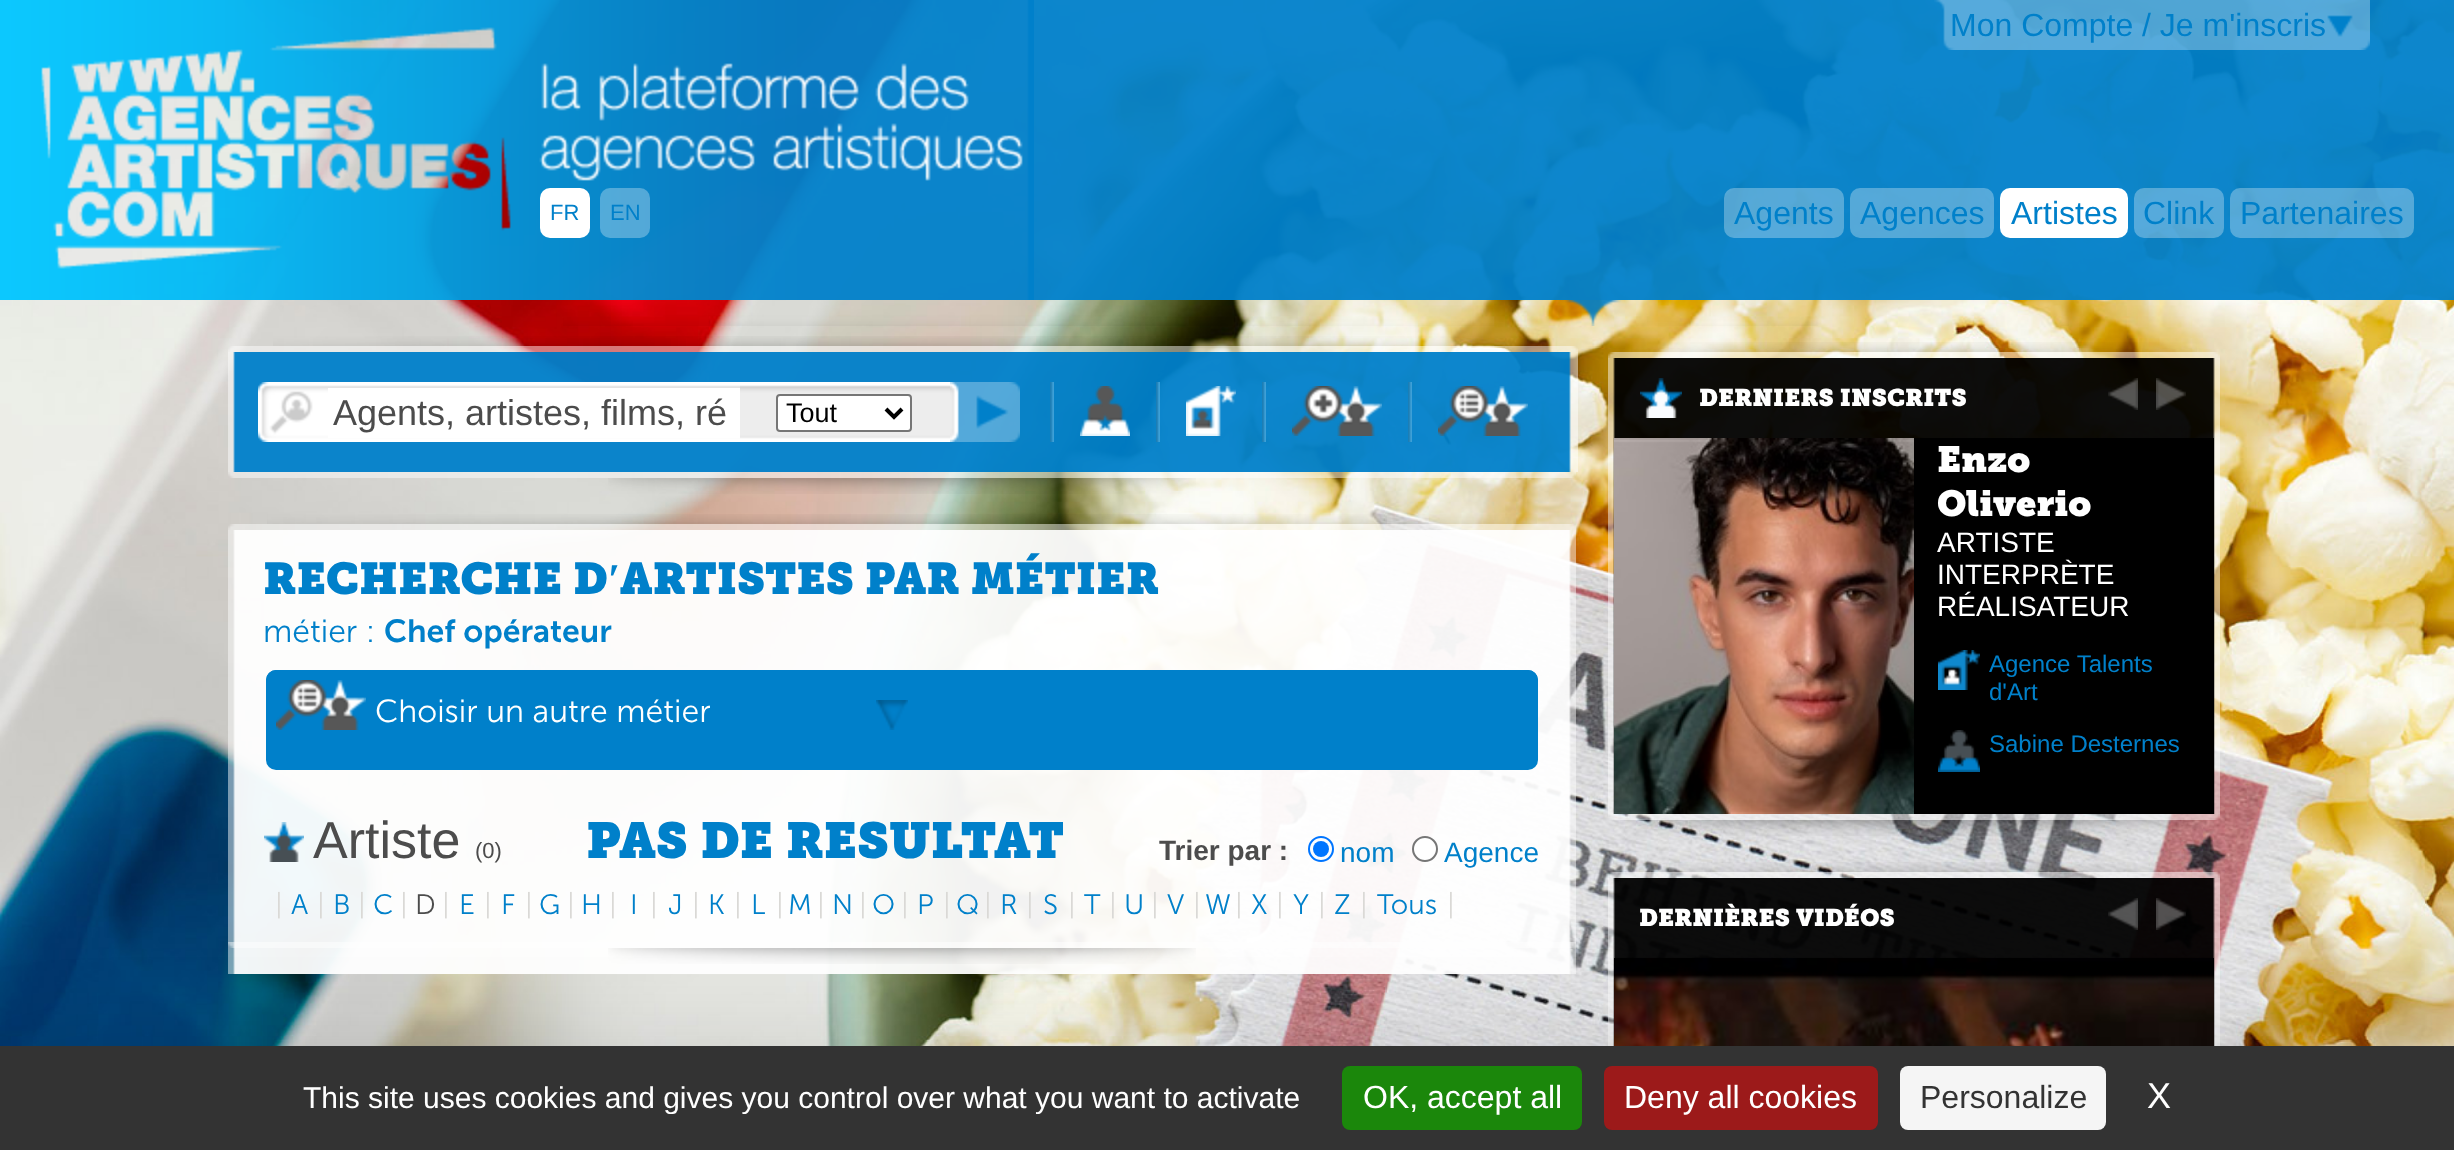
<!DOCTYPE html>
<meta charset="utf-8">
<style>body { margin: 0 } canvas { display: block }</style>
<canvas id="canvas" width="2454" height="1150"></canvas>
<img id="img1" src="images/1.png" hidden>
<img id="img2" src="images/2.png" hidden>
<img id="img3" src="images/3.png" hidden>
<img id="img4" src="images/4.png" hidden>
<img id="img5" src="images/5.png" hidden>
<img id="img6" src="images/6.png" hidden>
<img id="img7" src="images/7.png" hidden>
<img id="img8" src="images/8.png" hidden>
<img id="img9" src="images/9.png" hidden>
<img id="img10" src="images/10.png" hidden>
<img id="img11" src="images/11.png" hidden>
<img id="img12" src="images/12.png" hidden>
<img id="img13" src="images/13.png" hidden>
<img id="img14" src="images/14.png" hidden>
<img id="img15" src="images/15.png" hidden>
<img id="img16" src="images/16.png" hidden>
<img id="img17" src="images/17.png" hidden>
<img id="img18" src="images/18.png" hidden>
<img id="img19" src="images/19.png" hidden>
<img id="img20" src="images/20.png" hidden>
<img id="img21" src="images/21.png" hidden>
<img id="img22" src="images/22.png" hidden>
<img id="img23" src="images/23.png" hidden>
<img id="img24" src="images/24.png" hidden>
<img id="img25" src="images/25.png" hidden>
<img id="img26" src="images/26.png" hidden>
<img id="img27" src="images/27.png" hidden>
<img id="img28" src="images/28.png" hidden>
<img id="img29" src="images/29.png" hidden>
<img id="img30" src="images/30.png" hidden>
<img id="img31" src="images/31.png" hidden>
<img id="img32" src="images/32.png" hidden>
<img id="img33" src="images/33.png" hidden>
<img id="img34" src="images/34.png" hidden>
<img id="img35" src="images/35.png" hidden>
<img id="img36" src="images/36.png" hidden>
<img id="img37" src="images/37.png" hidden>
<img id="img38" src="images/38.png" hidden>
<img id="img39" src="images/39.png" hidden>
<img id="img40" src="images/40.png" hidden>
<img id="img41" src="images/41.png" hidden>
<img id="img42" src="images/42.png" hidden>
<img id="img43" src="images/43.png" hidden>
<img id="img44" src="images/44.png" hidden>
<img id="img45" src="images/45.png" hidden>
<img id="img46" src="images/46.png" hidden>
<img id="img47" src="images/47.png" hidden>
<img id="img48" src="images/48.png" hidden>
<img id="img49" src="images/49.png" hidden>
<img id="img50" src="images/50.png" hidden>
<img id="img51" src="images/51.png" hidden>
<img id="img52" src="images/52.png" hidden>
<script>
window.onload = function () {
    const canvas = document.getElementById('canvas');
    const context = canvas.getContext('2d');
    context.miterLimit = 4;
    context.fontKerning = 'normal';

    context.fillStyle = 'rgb(255, 255, 255)';
    context.fillRect(0, 0, 2454, 1150);
    context.drawImage(document.getElementById('img1'), 0, 0, 2454, 1046);
    context.drawImage(document.getElementById('img2'), 1027, 0, 1427, 300);
    context.drawImage(document.getElementById('img3'), 0, 0, 1034, 300);
    context.beginPath();
    context.roundRect(540, 188, 50, 50, 10);
    context.fill();
    context.drawImage(document.getElementById('img4'), 600, 188, 50, 50);
    context.drawImage(document.getElementById('img5'), 1934, 0, 436, 50);
    context.drawImage(document.getElementById('img6'), 1724, 188, 120, 50);
    context.drawImage(document.getElementById('img7'), 1850, 188, 144, 50);
    context.beginPath();
    context.roundRect(2000, 188, 128, 50, 10);
    context.fill();
    context.drawImage(document.getElementById('img8'), 2134, 188, 90, 50);
    context.drawImage(document.getElementById('img9'), 2230, 188, 184, 50);
    context.drawImage(document.getElementById('img10'), 563, 300, 1506, 26);
    context.drawImage(document.getElementById('img11'), 273, 336, 1250, 10);
    context.drawImage(document.getElementById('img12'), 228, 346, 1350, 6);
    context.drawImage(document.getElementById('img13'), 228, 352, 1350, 120);
    context.drawImage(document.getElementById('img14'), 258, 382, 70, 60);
    context.drawImage(document.getElementById('img15'), 328, 382, 412, 60);
    context.fillRect(328, 388, 412, 50);
    context.drawImage(document.getElementById('img16'), 740, 382, 210, 60);
    context.beginPath();
    context.roundRect(777, 395, 134, 36, 3);
    context.fill();
    context.strokeStyle = 'rgb(118, 118, 118)';
    context.lineWidth = 2;
    context.stroke();
    context.beginPath();
    context.moveTo(886, 409);
    context.lineTo(894, 417);
    context.lineTo(902, 409);
    context.strokeStyle = 'rgb(0, 0, 0)';
    context.lineWidth = 4;
    context.stroke();
    context.drawImage(document.getElementById('img17'), 950, 382, 70, 60);
    context.drawImage(document.getElementById('img18'), 1050, 382, 4, 60);
    context.drawImage(document.getElementById('img19'), 1080, 386, 50, 50);
    context.drawImage(document.getElementById('img20'), 1156, 382, 4, 60);
    context.drawImage(document.getElementById('img21'), 1186, 386, 50, 50);
    context.drawImage(document.getElementById('img22'), 1262, 382, 4, 60);
    context.drawImage(document.getElementById('img23'), 1292, 386, 90, 50);
    context.drawImage(document.getElementById('img24'), 1408, 382, 4, 60);
    context.drawImage(document.getElementById('img25'), 1438, 386, 90, 50);
    context.drawImage(document.getElementById('img26'), 228, 472, 1348, 6);
    context.drawImage(document.getElementById('img27'), 608, 478, 588, 16);
    context.drawImage(document.getElementById('img28'), 267, 514, 1270, 10);
    context.drawImage(document.getElementById('img29'), 228, 524, 1348, 6);
    context.drawImage(document.getElementById('img30'), 228, 530, 1348, 444);
    context.fillStyle = 'rgb(0, 128, 202)';
    context.beginPath();
    context.roundRect(266, 670, 1272, 100, 10);
    context.fill();
    context.beginPath();
    context.roundRect(266, 670, 1272, 70, [10, 10, 0, 0]);
    context.fill();
    context.drawImage(document.getElementById('img31'), 276, 680, 90, 50);
    context.drawImage(document.getElementById('img32'), 876, 700, 32, 30);
    context.drawImage(document.getElementById('img33'), 264, 822, 40, 40);
    context.beginPath();
    context.arc(1321, 849, 12, 0, 2 * Math.PI);
    context.strokeStyle = 'rgb(0, 117, 255)';
    context.lineWidth = 2;
    context.stroke();
    context.fillStyle = 'rgb(0, 117, 255)';
    context.beginPath();
    context.arc(1321, 849, 8, 0, 2 * Math.PI);
    context.fill();
    context.fillStyle = 'rgb(255, 255, 255)';
    context.beginPath();
    context.arc(1425, 849, 12, 0, 2 * Math.PI);
    context.fill();
    context.strokeStyle = 'rgb(118, 118, 118)';
    context.stroke();
    context.drawImage(document.getElementById('img34'), 228, 942, 1348, 6);
    context.drawImage(document.getElementById('img35'), 608, 948, 588, 16);
    context.drawImage(document.getElementById('img36'), 1631, 342, 566, 10);
    context.drawImage(document.getElementById('img37'), 1608, 352, 612, 6);
    context.drawImage(document.getElementById('img38'), 1608, 358, 612, 456);
    context.drawImage(document.getElementById('img39'), 1640, 378, 42, 40);
    context.drawImage(document.getElementById('img40'), 2108, 378, 30, 32);
    context.drawImage(document.getElementById('img41'), 2156, 378, 30, 32);
    context.fillStyle = 'rgb(0, 0, 0)';
    context.fillRect(1914, 438, 300, 376);
    context.drawImage(document.getElementById('img42'), 1614, 438, 300, 376);
    context.drawImage(document.getElementById('img43'), 1938, 650, 42, 40);
    context.drawImage(document.getElementById('img44'), 1938, 730, 42, 42);
    context.drawImage(document.getElementById('img45'), 1608, 814, 612, 6);
    context.drawImage(document.getElementById('img46'), 1620, 820, 588, 16);
    context.drawImage(document.getElementById('img47'), 1633, 862, 564, 10);
    context.drawImage(document.getElementById('img48'), 1608, 872, 612, 6);
    context.drawImage(document.getElementById('img49'), 1608, 878, 612, 168);
    context.drawImage(document.getElementById('img50'), 2108, 898, 30, 32);
    context.drawImage(document.getElementById('img51'), 2156, 898, 30, 32);
    context.drawImage(document.getElementById('img52'), 1614, 958, 600, 88);
    context.fillStyle = 'rgba(0, 0, 0, 0.25)';
    context.filter = 'blur(60px)';
    context.beginPath();
    context.rect(0, 1086, 2454, 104);
    context.fill();
    context.filter = 'none';
    context.fillStyle = 'rgb(51, 51, 51)';
    context.fillRect(0, 1046, 2454, 104);
    context.fillStyle = 'rgb(27, 135, 11)';
    context.beginPath();
    context.roundRect(1342, 1066, 240, 64, 8);
    context.fill();
    context.fillStyle = 'rgb(156, 26, 26)';
    context.beginPath();
    context.roundRect(1604, 1066, 274, 64, 8);
    context.fill();
    context.fillStyle = 'rgb(245, 245, 245)';
    context.beginPath();
    context.roundRect(1900, 1066, 206, 64, 8);
    context.fill();
    context.font = '22px Liberation Sans';
    context.fillStyle = 'rgb(0, 128, 202)';
    context.fillText('FR', 550, 220);
    context.fillText('EN', 610, 220);
    context.font = '32px Liberation Sans';
    context.fillText('Mon Compte / Je m\'inscris', 1950, 36);
    context.fillText('Agents', 1734, 224);
    context.fillText('Agences', 1860, 224);
    context.fillText('Artistes', 2011, 224);
    context.fillText('Clink', 2143, 224);
    context.fillText('Partenaires', 2240, 224);
    context.font = '36px Liberation Sans';
    context.fillStyle = 'rgb(76, 76, 76)';
    context.fillText('Agents, artistes, films, ré', 333, 425);
    context.font = '27px Liberation Sans';
    context.fillStyle = 'rgb(0, 0, 0)';
    context.fillText('Tout', 786, 422);
    context.font = '900 44px "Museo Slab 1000"';
    context.fillStyle = 'rgb(0, 128, 202)';
    context.fillText('RECHERCHE D', 263, 594);
    context.font = 'bold 44px Liberation Serif';
    context.fillText('′', 608, 594);
    context.font = '900 44px "Museo Slab 1000"';
    context.fillText('ARTISTES PAR MÉTIER', 620, 594);
    context.font = '300 32px "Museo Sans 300"';
    context.fillText('métier :', 263, 642);
    context.font = '600 32px "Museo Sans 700"';
    context.fillText('Chef opérateur', 384, 642);
    context.font = '300 32px "Museo Sans 300"';
    context.fillStyle = 'rgb(255, 255, 255)';
    context.fillText('Choisir un autre métier', 375, 722);
    context.font = '52px Liberation Sans';
    context.fillStyle = 'rgb(76, 76, 76)';
    context.fillText('Artiste', 313, 858);
    context.font = '22px Liberation Sans';
    context.fillText('(0)', 475, 858);
    context.font = 'bold 28px Liberation Sans';
    context.fillText('Trier par :', 1159, 860);
    context.font = '28px Liberation Sans';
    context.fillStyle = 'rgb(0, 128, 202)';
    context.fillText('nom', 1340, 862);
    context.fillText('Agence', 1444, 862);
    context.font = '900 50px "Museo Slab 1000"';
    context.fillText('PAS DE RESULTAT', 586, 858);
    context.font = '300 28px "Museo Sans 300"';
    context.fillStyle = 'rgb(218, 217, 214)';
    context.fillText('|', 275, 914);
    context.fillStyle = 'rgb(0, 128, 202)';
    context.fillText('A', 291, 914);
    context.fillStyle = 'rgb(218, 217, 214)';
    context.fillText('|', 317, 914);
    context.fillStyle = 'rgb(0, 128, 202)';
    context.fillText('B', 333, 914);
    context.fillStyle = 'rgb(218, 217, 214)';
    context.fillText('|', 358, 914);
    context.fillStyle = 'rgb(0, 128, 202)';
    context.fillText('C', 373, 914);
    context.fillStyle = 'rgb(218, 217, 214)';
    context.fillText('|', 400, 914);
    context.fillStyle = 'rgb(76, 76, 76)';
    context.fillText('D', 415, 914);
    context.fillStyle = 'rgb(218, 217, 214)';
    context.fillText('|', 442, 914);
    context.fillStyle = 'rgb(0, 128, 202)';
    context.fillText('E', 459, 914);
    context.fillStyle = 'rgb(218, 217, 214)';
    context.fillText('|', 484, 914);
    context.fillStyle = 'rgb(0, 128, 202)';
    context.fillText('F', 501, 914);
    context.fillStyle = 'rgb(218, 217, 214)';
    context.fillText('|', 525, 914);
    context.fillStyle = 'rgb(0, 128, 202)';
    context.fillText('G', 539, 914);
    context.fillStyle = 'rgb(218, 217, 214)';
    context.fillText('|', 567, 914);
    context.fillStyle = 'rgb(0, 128, 202)';
    context.fillText('H', 581, 914);
    context.fillStyle = 'rgb(218, 217, 214)';
    context.fillText('|', 609, 914);
    context.fillStyle = 'rgb(0, 128, 202)';
    context.fillText('I', 630, 914);
    context.fillStyle = 'rgb(218, 217, 214)';
    context.fillText('|', 650, 914);
    context.fillStyle = 'rgb(0, 128, 202)';
    context.fillText('J', 668, 914);
    context.fillStyle = 'rgb(218, 217, 214)';
    context.fillText('|', 692, 914);
    context.fillStyle = 'rgb(0, 128, 202)';
    context.fillText('K', 708, 914);
    context.fillStyle = 'rgb(218, 217, 214)';
    context.fillText('|', 734, 914);
    context.fillStyle = 'rgb(0, 128, 202)';
    context.fillText('L', 751, 914);
    context.fillStyle = 'rgb(218, 217, 214)';
    context.fillText('|', 776, 914);
    context.fillStyle = 'rgb(0, 128, 202)';
    context.fillText('M', 788, 914);
    context.fillStyle = 'rgb(218, 217, 214)';
    context.fillText('|', 817, 914);
    context.fillStyle = 'rgb(0, 128, 202)';
    context.fillText('N', 832, 914);
    context.fillStyle = 'rgb(218, 217, 214)';
    context.fillText('|', 859, 914);
    context.fillStyle = 'rgb(0, 128, 202)';
    context.fillText('O', 872, 914);
    context.fillStyle = 'rgb(218, 217, 214)';
    context.fillText('|', 901, 914);
    context.fillStyle = 'rgb(0, 128, 202)';
    context.fillText('P', 917, 914);
    context.fillStyle = 'rgb(218, 217, 214)';
    context.fillText('|', 943, 914);
    context.fillStyle = 'rgb(0, 128, 202)';
    context.fillText('Q', 956, 914);
    context.fillStyle = 'rgb(218, 217, 214)';
    context.fillText('|', 984, 914);
    context.fillStyle = 'rgb(0, 128, 202)';
    context.fillText('R', 1000, 914);
    context.fillStyle = 'rgb(218, 217, 214)';
    context.fillText('|', 1026, 914);
    context.fillStyle = 'rgb(0, 128, 202)';
    context.fillText('S', 1043, 914);
    context.fillStyle = 'rgb(218, 217, 214)';
    context.fillText('|', 1068, 914);
    context.fillStyle = 'rgb(0, 128, 202)';
    context.fillText('T', 1084, 914);
    context.fillStyle = 'rgb(218, 217, 214)';
    context.fillText('|', 1109, 914);
    context.fillStyle = 'rgb(0, 128, 202)';
    context.fillText('U', 1124, 914);
    context.fillStyle = 'rgb(218, 217, 214)';
    context.fillText('|', 1151, 914);
    context.fillStyle = 'rgb(0, 128, 202)';
    context.fillText('V', 1167, 914);
    context.fillStyle = 'rgb(218, 217, 214)';
    context.fillText('|', 1193, 914);
    context.fillStyle = 'rgb(0, 128, 202)';
    context.fillText('W', 1205, 914);
    context.fillStyle = 'rgb(218, 217, 214)';
    context.fillText('|', 1235, 914);
    context.fillStyle = 'rgb(0, 128, 202)';
    context.fillText('X', 1251, 914);
    context.fillStyle = 'rgb(218, 217, 214)';
    context.fillText('|', 1276, 914);
    context.fillStyle = 'rgb(0, 128, 202)';
    context.fillText('Y', 1293, 914);
    context.fillStyle = 'rgb(218, 217, 214)';
    context.fillText('|', 1318, 914);
    context.fillStyle = 'rgb(0, 128, 202)';
    context.fillText('Z', 1334, 914);
    context.fillStyle = 'rgb(218, 217, 214)';
    context.fillText('|', 1360, 914);
    context.fillStyle = 'rgb(0, 128, 202)';
    context.fillText('Tous', 1377, 914);
    context.fillStyle = 'rgb(218, 217, 214)';
    context.fillText('|', 1447, 914);
    context.font = '900 24px "Museo Slab 1000"';
    context.fillStyle = 'rgb(255, 255, 255)';
    context.fillText('DERNIERS INSCRITS', 1699, 406);
    context.font = '900 36px "Museo Slab 1000"';
    context.fillText('Enzo', 1937, 472);
    context.fillText('Oliverio', 1937, 516);
    context.font = '28px Liberation Sans';
    context.fillText('ARTISTE', 1937, 552);
    context.fillText('INTERPRÈTE', 1937, 584);
    context.fillText('RÉALISATEUR', 1937, 616);
    context.font = '24px Liberation Sans';
    context.fillStyle = 'rgb(0, 128, 202)';
    context.fillText('Agence Talents', 1989, 672);
    context.fillText('d\'Art', 1989, 700);
    context.fillText('Sabine Desternes', 1989, 752);
    context.font = '900 24px "Museo Slab 1000"';
    context.fillStyle = 'rgb(255, 255, 255)';
    context.fillText('DERNIÈRES VIDÉOS', 1639, 926);
    context.save();
    context.beginPath();
    context.rect(284, 1080, 1036, 34);
    context.clip();
    context.font = '30px Liberation Sans';
    context.fillText('This site uses cookies and gives you control over what you want to activate', 303, 1108);
    context.restore();
    context.font = '32px Liberation Sans';
    context.fillText('OK, accept all', 1363, 1108);
    context.fillText('Deny all cookies', 1624, 1108);
    context.fillStyle = 'rgb(51, 51, 51)';
    context.fillText('Personalize', 1920, 1108);
    context.font = '36px Liberation Sans';
    context.fillStyle = 'rgb(255, 255, 255)';
    context.fillText('X', 2147, 1108);
};
</script>
